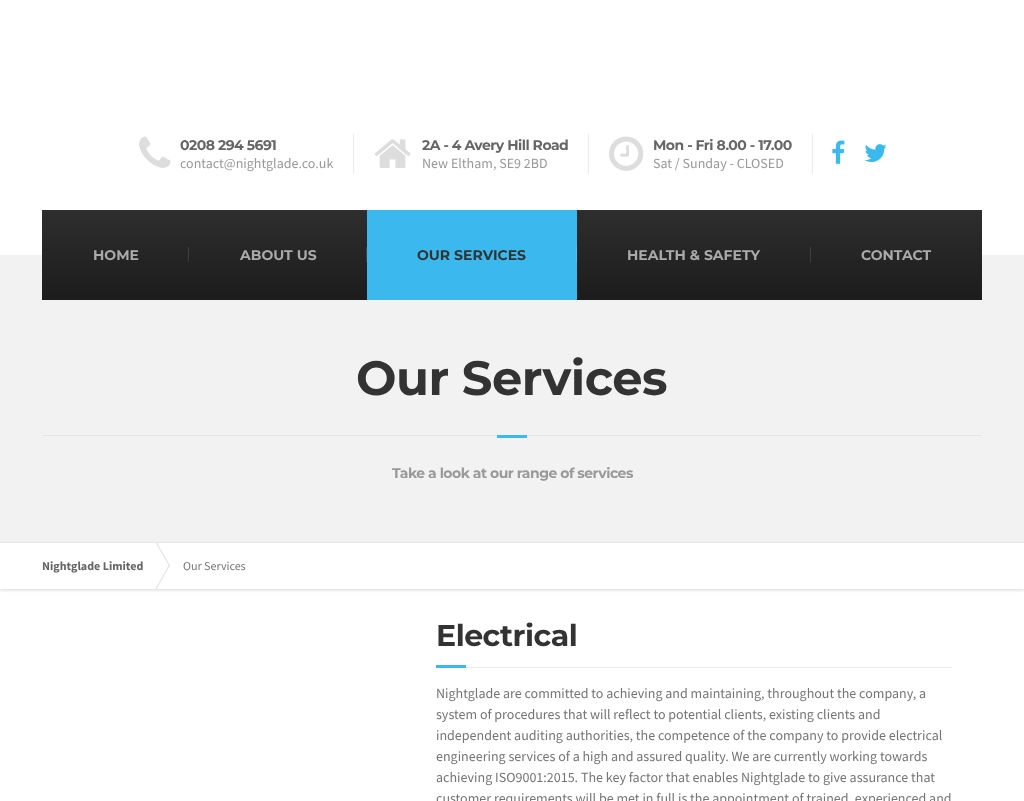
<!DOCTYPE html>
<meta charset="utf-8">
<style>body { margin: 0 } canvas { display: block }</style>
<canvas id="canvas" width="1024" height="801"></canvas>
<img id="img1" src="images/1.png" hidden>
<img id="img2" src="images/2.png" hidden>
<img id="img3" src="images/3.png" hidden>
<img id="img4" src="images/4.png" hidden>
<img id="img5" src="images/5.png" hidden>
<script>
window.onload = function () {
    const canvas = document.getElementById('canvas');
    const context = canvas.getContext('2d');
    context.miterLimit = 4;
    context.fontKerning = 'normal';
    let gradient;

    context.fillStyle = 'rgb(255, 255, 255)';
    context.fillRect(0, 0, 1024, 801);
    context.fillStyle = 'rgb(235, 235, 235)';
    context.fillRect(353, 134, 1, 40);
    context.drawImage(document.getElementById('img1'), 139, 136, 32, 32);
    context.fillRect(588, 134, 1, 40);
    context.drawImage(document.getElementById('img2'), 374, 139, 37, 29);
    context.fillRect(812, 134, 1, 40);
    context.drawImage(document.getElementById('img3'), 609, 136, 35, 35);
    context.drawImage(document.getElementById('img4'), 832, 140, 13, 24);
    context.drawImage(document.getElementById('img5'), 864, 144, 23, 18);
    context.fillStyle = 'rgb(242, 242, 242)';
    context.fillRect(0, 255, 1024, 287);
    gradient = context.createLinearGradient(512, 210, 512, 300);
    gradient.addColorStop(0, 'rgb(46, 46, 46)');
    gradient.addColorStop(1, 'rgb(28, 28, 28)');
    context.fillStyle = gradient;
    context.fillRect(42, 210, 940, 90);
    gradient = context.createLinearGradient(512, 210, 512, 300);
    gradient.addColorStop(0, 'rgb(71, 71, 71)');
    gradient.addColorStop(1, 'rgb(55, 55, 55)');
    context.fillStyle = gradient;
    context.fillRect(810, 247, 1, 15);
    context.fillRect(366, 247, 1, 15);
    context.fillRect(188, 247, 1, 15);
    context.fillStyle = 'rgb(59, 185, 239)';
    context.fillRect(367, 210, 210, 90);
    context.fillStyle = 'rgb(83, 193, 241)';
    context.fillRect(576, 247, 1, 15);
    context.fillStyle = 'rgb(230, 230, 230)';
    context.fillRect(0, 542, 1024, 1);
    context.fillStyle = 'rgb(227, 227, 227)';
    context.fillRect(42, 435, 940, 1);
    context.fillStyle = 'rgb(59, 185, 239)';
    context.fillRect(497, 435, 30, 3);
    context.save();
    context.beginPath();
    context.rect(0, 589, 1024, 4);
    context.clip();
    context.fillStyle = 'rgb(230, 230, 230)';
    context.filter = 'blur(1px)';
    context.beginPath();
    context.rect(0, 545, 1024, 46);
    context.fill();
    context.filter = 'none';
    context.restore();
    context.fillStyle = 'rgb(226, 226, 226)';
    context.beginPath();
    context.moveTo(155.5, 542.5);
    context.lineTo(156.5, 542);
    context.lineTo(170, 565.5);
    context.lineTo(169, 566);
    context.closePath();
    context.fill();
    context.beginPath();
    context.moveTo(169, 565);
    context.lineTo(170, 565.5);
    context.lineTo(156.5, 589);
    context.lineTo(155.5, 588.5);
    context.closePath();
    context.fill();
    context.fillStyle = 'rgb(235, 235, 235)';
    context.fillRect(466, 667, 486, 1);
    context.fillStyle = 'rgb(59, 185, 239)';
    context.fillRect(436, 665, 30, 3);
    context.letterSpacing = '-0.5px';
    context.font = 'bold 14px Montserrat';
    context.fillStyle = 'rgb(102, 102, 102)';
    context.fillText('0208 294 5691', 180, 150);
    context.letterSpacing = '0px';
    context.font = '14px Source Sans Pro';
    context.fillStyle = 'rgb(153, 153, 153)';
    context.fillText('contact@nightglade.co.uk', 180, 168);
    context.letterSpacing = '-0.5px';
    context.font = 'bold 14px Montserrat';
    context.fillStyle = 'rgb(102, 102, 102)';
    context.fillText('2A - 4 Avery Hill Road', 422, 150);
    context.letterSpacing = '0px';
    context.font = '14px Source Sans Pro';
    context.fillStyle = 'rgb(153, 153, 153)';
    context.fillText('New Eltham, SE9 2BD', 422, 168);
    context.letterSpacing = '-0.5px';
    context.font = 'bold 14px Montserrat';
    context.fillStyle = 'rgb(102, 102, 102)';
    context.fillText('Mon - Fri 8.00 - 17.00', 653, 150);
    context.letterSpacing = '0px';
    context.font = '14px Source Sans Pro';
    context.fillStyle = 'rgb(153, 153, 153)';
    context.fillText('Sat / Sunday - CLOSED', 653, 168);
    context.font = 'bold 14px Montserrat';
    context.fillStyle = 'rgb(170, 170, 170)';
    context.fillText('HOME', 93, 260);
    context.fillText('ABOUT US', 240, 260);
    context.fillStyle = 'rgb(51, 51, 51)';
    context.fillText('OUR SERVICES', 417, 260);
    context.fillStyle = 'rgb(170, 170, 170)';
    context.fillText('HEALTH & SAFETY', 627, 260);
    context.fillText('CONTACT', 861, 260);
    context.letterSpacing = '-0.5px';
    context.font = 'bold 48px Montserrat';
    context.fillStyle = 'rgb(51, 51, 51)';
    context.fillText('Our Services', 356, 395);
    context.font = 'bold 14px Montserrat';
    context.fillStyle = 'rgb(153, 153, 153)';
    context.fillText('Take a look at our range of services', 392, 478);
    context.letterSpacing = '0px';
    context.font = 'bold 12px Source Sans Pro';
    context.fillStyle = 'rgb(102, 102, 102)';
    context.fillText('Nightglade Limited', 42, 570);
    context.font = '12px Source Sans Pro';
    context.fillStyle = 'rgb(117, 117, 117)';
    context.fillText('Our Services', 183, 570);
    context.letterSpacing = '-0.5px';
    context.font = 'bold 30px Montserrat';
    context.fillStyle = 'rgb(51, 51, 51)';
    context.fillText('Electrical', 436, 646);
    context.letterSpacing = '0px';
    context.font = '14px Source Sans Pro';
    context.fillStyle = 'rgb(117, 117, 117)';
    context.fillText('Nightglade are committed to achieving and maintaining, throughout the company, a', 436, 698);
    context.fillText('system of procedures that will reflect to potential clients, existing clients and', 436, 719);
    context.fillText('independent auditing authorities, the competence of the company to provide electrical', 436, 740);
    context.fillText('engineering services of a high and assured quality. We are currently working towards', 436, 761);
    context.fillText('achieving ISO9001:2015. The key factor that enables Nightglade to give assurance that', 436, 782);
    context.fillText('customer requirements will be met in full is the appointment of trained, experienced and', 436, 803);
};
</script>
